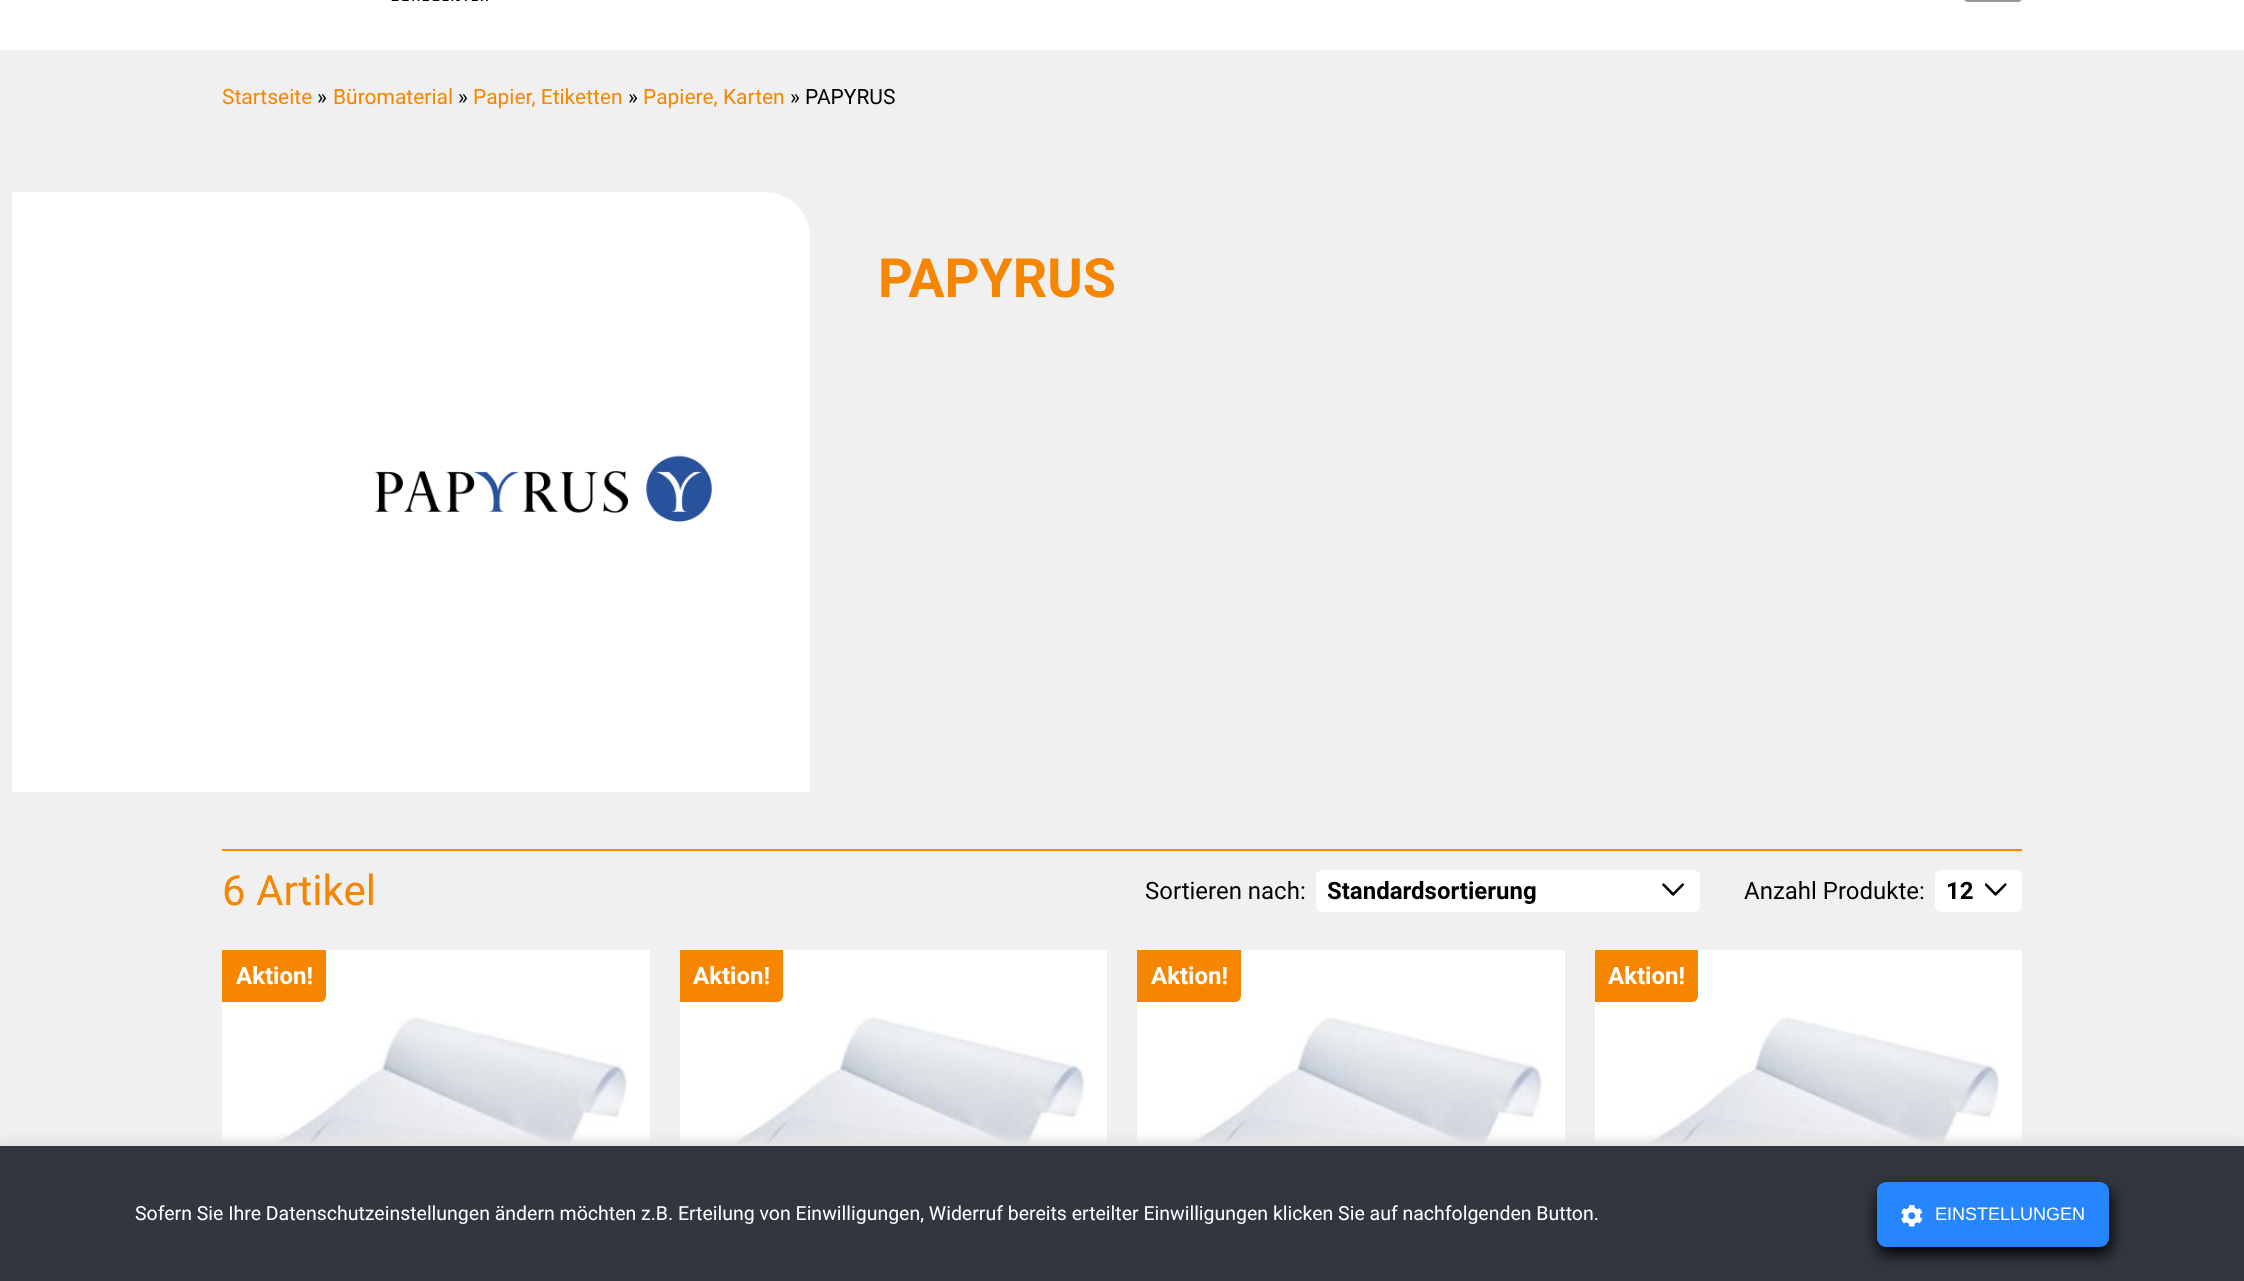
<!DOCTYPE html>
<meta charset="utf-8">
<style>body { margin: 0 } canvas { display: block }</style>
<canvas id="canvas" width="2244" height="1281"></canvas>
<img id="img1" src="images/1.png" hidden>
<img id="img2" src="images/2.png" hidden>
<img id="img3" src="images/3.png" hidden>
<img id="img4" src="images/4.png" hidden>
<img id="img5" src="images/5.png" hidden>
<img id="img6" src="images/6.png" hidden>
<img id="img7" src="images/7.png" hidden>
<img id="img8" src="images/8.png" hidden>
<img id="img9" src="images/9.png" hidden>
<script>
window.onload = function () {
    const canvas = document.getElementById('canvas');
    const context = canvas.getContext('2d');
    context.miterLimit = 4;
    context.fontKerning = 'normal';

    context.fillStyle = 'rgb(240, 240, 240)';
    context.fillRect(0, 0, 2244, 1281);
    context.fillStyle = 'rgb(255, 255, 255)';
    context.fillRect(0, 0, 2244, 50);
    context.drawImage(document.getElementById('img1'), 391, 0, 97, 1);
    context.fillStyle = 'rgb(153, 153, 153)';
    context.beginPath();
    context.roundRect(1964, -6, 58, 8, 6);
    context.fill();
    context.fillStyle = 'rgb(255, 255, 255)';
    context.beginPath();
    context.roundRect(12, 192, 798, 600, [0, 45, 0, 0]);
    context.fill();
    context.drawImage(document.getElementById('img2'), 374, 455, 338, 67);
    context.fillStyle = 'rgb(246, 133, 0)';
    context.fillRect(222, 849, 1800, 2);
    context.fillStyle = 'rgb(255, 255, 255)';
    context.beginPath();
    context.roundRect(1316, 870, 384, 42, 6);
    context.fill();
    context.drawImage(document.getElementById('img3'), 1662, 883, 22, 13);
    context.beginPath();
    context.roundRect(1935, 870, 87, 42, 6);
    context.fill();
    context.drawImage(document.getElementById('img4'), 1985, 883, 22, 13);
    context.fillRect(222, 950, 428, 196);
    context.fillStyle = 'rgb(246, 133, 0)';
    context.beginPath();
    context.roundRect(222, 950, 104, 52, [0, 0, 6, 0]);
    context.fill();
    context.drawImage(document.getElementById('img5'), 244, 1017, 383, 129);
    context.fillStyle = 'rgb(255, 255, 255)';
    context.fillRect(680, 950, 427, 196);
    context.fillStyle = 'rgb(246, 133, 0)';
    context.beginPath();
    context.roundRect(680, 950, 103, 52, [0, 0, 6, 0]);
    context.fill();
    context.drawImage(document.getElementById('img6'), 702, 1017, 383, 129);
    context.fillStyle = 'rgb(255, 255, 255)';
    context.fillRect(1137, 950, 428, 196);
    context.fillStyle = 'rgb(246, 133, 0)';
    context.beginPath();
    context.roundRect(1137, 950, 104, 52, [0, 0, 6, 0]);
    context.fill();
    context.drawImage(document.getElementById('img7'), 1159, 1017, 383, 129);
    context.fillStyle = 'rgb(255, 255, 255)';
    context.fillRect(1595, 950, 427, 196);
    context.fillStyle = 'rgb(246, 133, 0)';
    context.beginPath();
    context.roundRect(1595, 950, 103, 52, [0, 0, 6, 0]);
    context.fill();
    context.drawImage(document.getElementById('img8'), 1617, 1017, 383, 129);
    context.fillStyle = 'rgb(228, 228, 228)';
    context.filter = 'blur(4px)';
    context.beginPath();
    context.rect(0, 1139, 2244, 135);
    context.fill();
    context.filter = 'none';
    context.fillStyle = 'rgb(50, 54, 64)';
    context.fillRect(0, 1146, 2244, 135);
    context.fillStyle = 'rgb(0, 0, 0)';
    context.filter = 'blur(7.5px)';
    context.beginPath();
    context.roundRect(1878, 1190, 233, 64, 9);
    context.fill();
    context.filter = 'none';
    context.fillStyle = 'rgb(37, 134, 255)';
    context.beginPath();
    context.roundRect(1877, 1182, 232, 65, 9);
    context.fill();
    context.drawImage(document.getElementById('img9'), 1901, 1205, 22, 22);
    context.font = '21px Roboto';
    context.fillStyle = 'rgb(246, 133, 0)';
    context.fillText('Startseite', 222, 104);
    context.fillStyle = 'rgb(0, 0, 0)';
    context.fillText('»', 317, 104);
    context.fillStyle = 'rgb(246, 133, 0)';
    context.fillText('Büromaterial', 333, 104);
    context.fillStyle = 'rgb(0, 0, 0)';
    context.fillText('»', 458, 104);
    context.fillStyle = 'rgb(246, 133, 0)';
    context.fillText('Papier, Etiketten', 473, 104);
    context.fillStyle = 'rgb(0, 0, 0)';
    context.fillText('»', 628, 104);
    context.fillStyle = 'rgb(246, 133, 0)';
    context.fillText('Papiere, Karten', 643, 104);
    context.fillStyle = 'rgb(0, 0, 0)';
    context.fillText('» PAPYRUS', 790, 104);
    context.font = 'bold 54px Roboto';
    context.fillStyle = 'rgb(246, 133, 0)';
    context.fillText('PAPYRUS', 878, 297);
    context.font = '42px Roboto';
    context.fillText('6 Artikel', 222, 905);
    context.font = '24px Roboto';
    context.fillStyle = 'rgb(0, 0, 0)';
    context.fillText('Sortieren nach:', 1145, 899);
    context.font = 'bold 24px Roboto';
    context.fillText('Standardsortierung', 1327, 899);
    context.font = '24px Roboto';
    context.fillText('Anzahl Produkte:', 1744, 899);
    context.font = 'bold 24px Roboto';
    context.fillText('12', 1946, 899);
    context.fillStyle = 'rgb(255, 255, 255)';
    context.fillText('Aktion!', 236, 984);
    context.fillText('Aktion!', 693, 984);
    context.fillText('Aktion!', 1151, 984);
    context.fillText('Aktion!', 1608, 984);
    context.font = '19.5px Roboto';
    context.fillText('Sofern Sie Ihre Datenschutzeinstellungen ändern möchten z.B. Erteilung von Einwilligungen, Widerruf bereits erteilter Einwilligungen klicken Sie auf nachfolgenden Button.', 135, 1220);
    context.font = '18px Liberation Sans';
    context.fillText('EINSTELLUNGEN', 1935, 1220);
};
</script>
